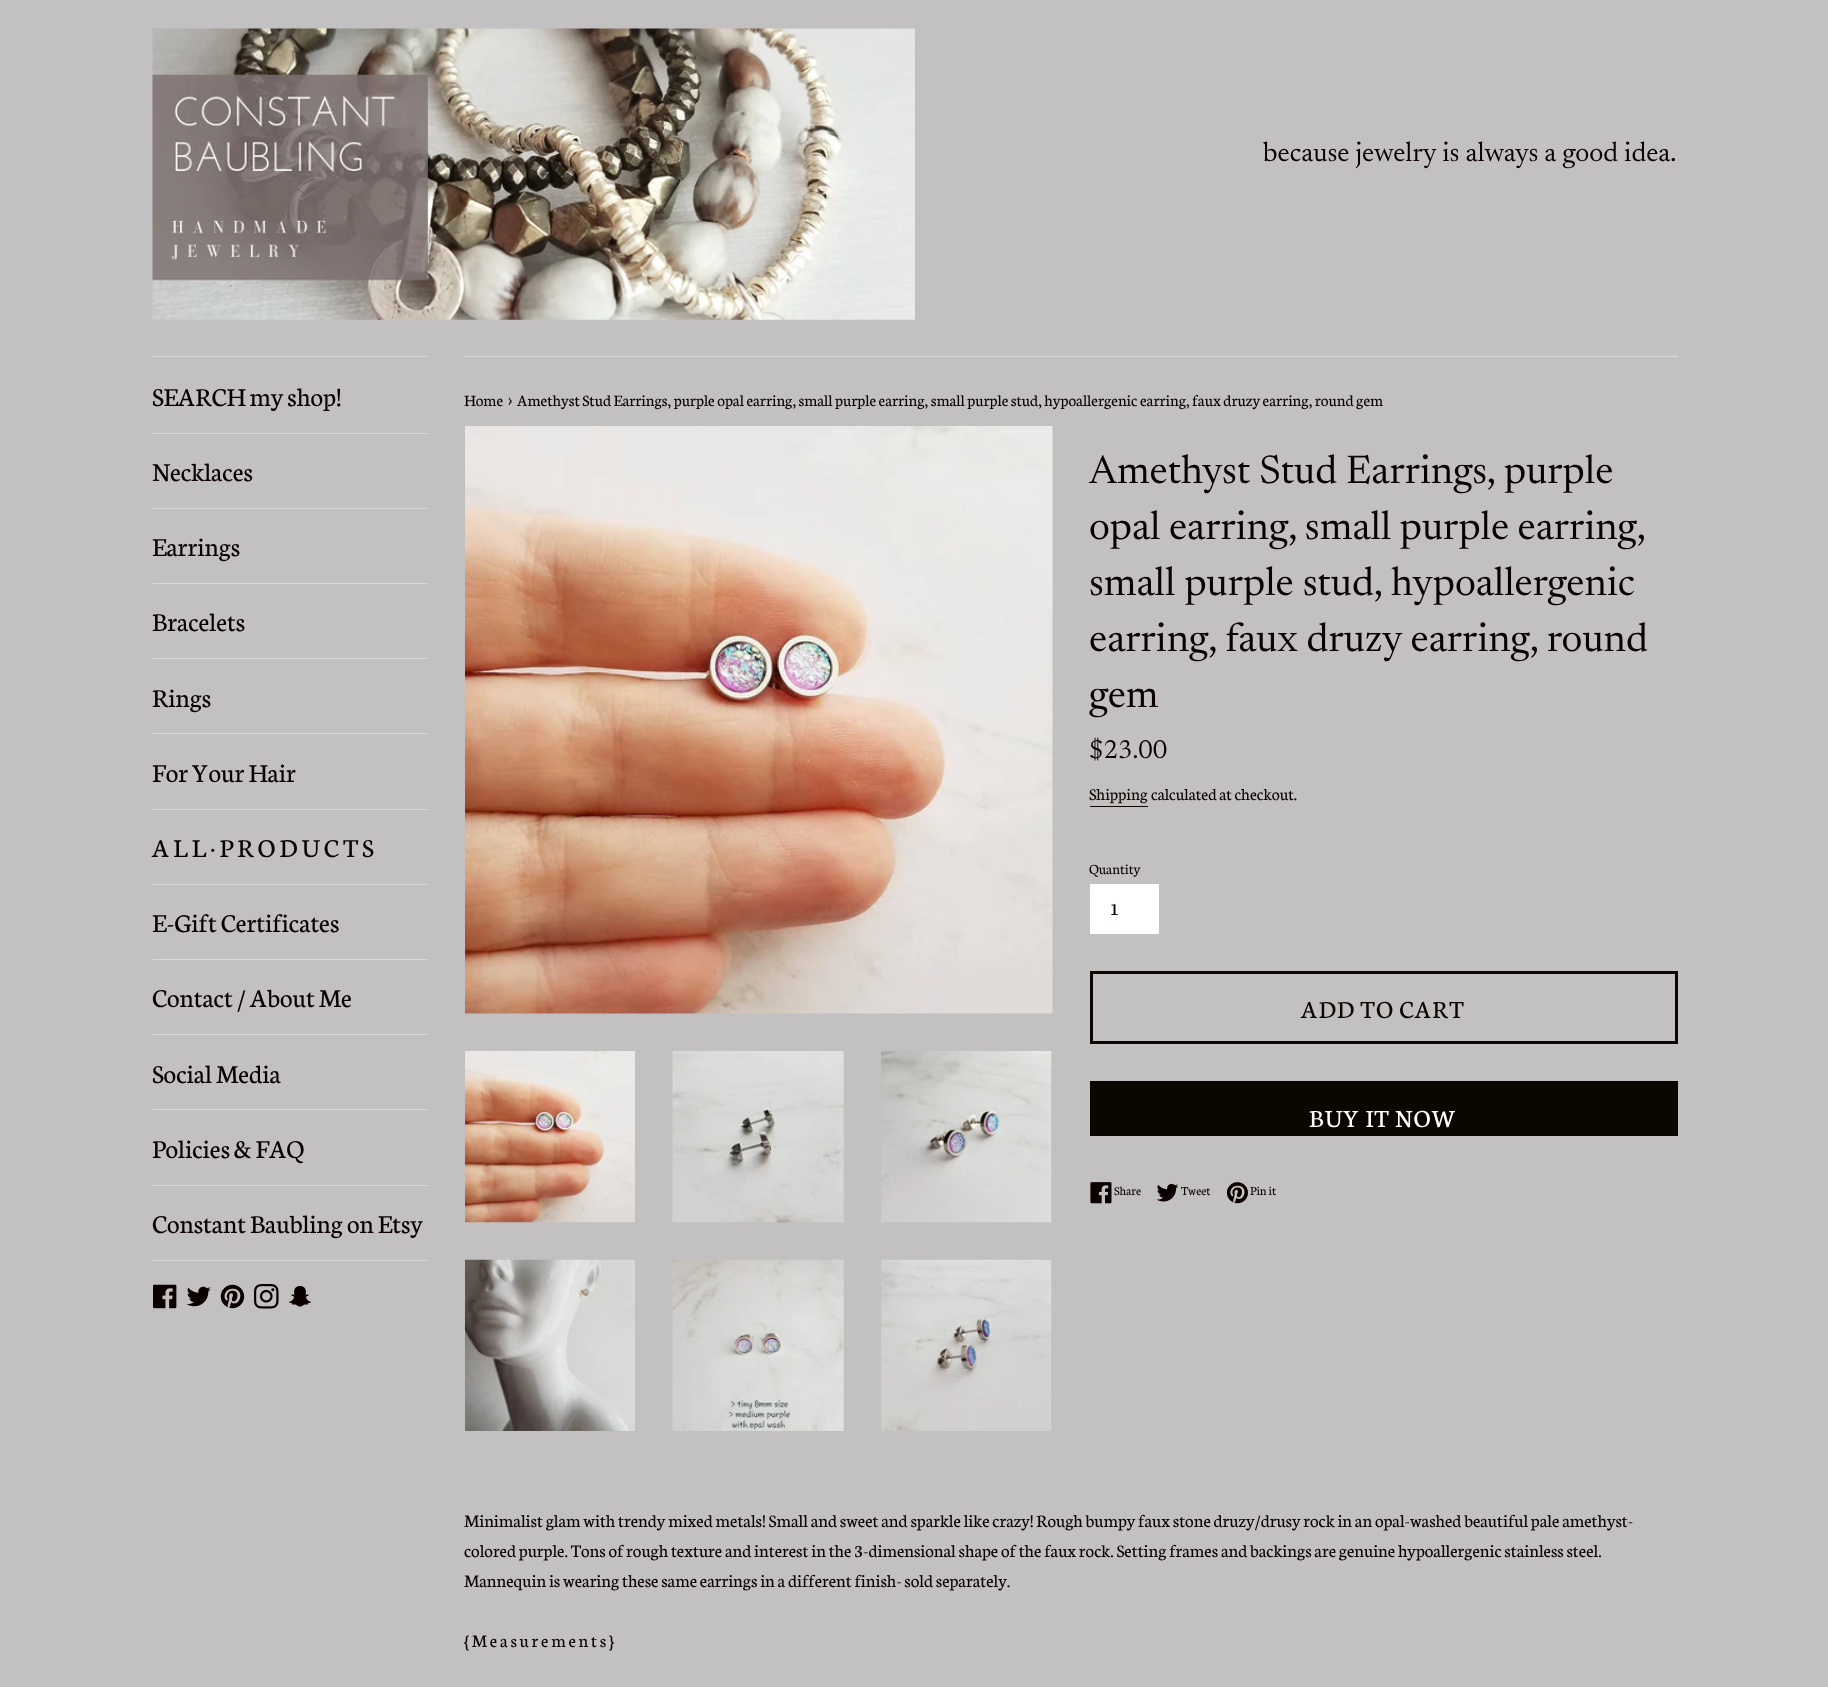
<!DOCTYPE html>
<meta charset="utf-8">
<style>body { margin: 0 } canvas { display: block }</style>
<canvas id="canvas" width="1828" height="1687"></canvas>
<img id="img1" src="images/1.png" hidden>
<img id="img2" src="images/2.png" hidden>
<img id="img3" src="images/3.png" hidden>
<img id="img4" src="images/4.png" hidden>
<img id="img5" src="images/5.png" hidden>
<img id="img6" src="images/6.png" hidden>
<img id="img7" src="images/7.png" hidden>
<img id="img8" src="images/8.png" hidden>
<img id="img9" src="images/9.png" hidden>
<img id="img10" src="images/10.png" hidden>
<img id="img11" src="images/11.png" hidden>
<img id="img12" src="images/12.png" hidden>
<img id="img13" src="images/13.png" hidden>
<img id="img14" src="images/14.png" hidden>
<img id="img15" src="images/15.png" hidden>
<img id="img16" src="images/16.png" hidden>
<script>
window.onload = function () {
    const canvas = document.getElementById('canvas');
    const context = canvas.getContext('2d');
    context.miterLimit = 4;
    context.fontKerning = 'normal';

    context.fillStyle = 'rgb(194, 192, 192)';
    context.fillRect(0, 0, 1828, 1687);
    context.drawImage(document.getElementById('img1'), 152, 28, 763, 292);
    context.fillStyle = 'rgb(215, 216, 210)';
    context.fillRect(153, 356, 275, 1);
    context.fillRect(153, 433, 275, 1);
    context.fillRect(153, 508, 275, 1);
    context.fillRect(153, 583, 275, 1);
    context.fillRect(153, 658, 275, 1);
    context.fillRect(153, 733, 275, 1);
    context.fillRect(153, 809, 275, 1);
    context.fillRect(153, 884, 275, 1);
    context.fillRect(153, 959, 275, 1);
    context.fillRect(153, 1034, 275, 1);
    context.fillRect(153, 1109, 275, 1);
    context.fillRect(153, 1185, 275, 1);
    context.fillRect(153, 1260, 275, 1);
    context.drawImage(document.getElementById('img2'), 153, 1284, 24, 25);
    context.drawImage(document.getElementById('img3'), 186, 1286, 25, 21);
    context.drawImage(document.getElementById('img4'), 220, 1284, 25, 25);
    context.drawImage(document.getElementById('img5'), 254, 1284, 25, 25);
    context.drawImage(document.getElementById('img6'), 289, 1286, 22, 21);
    context.fillRect(465, 356, 1213, 1);
    context.drawImage(document.getElementById('img7'), 465, 426, 588, 588);
    context.drawImage(document.getElementById('img8'), 465, 1051, 170, 172);
    context.drawImage(document.getElementById('img9'), 672, 1051, 172, 172);
    context.drawImage(document.getElementById('img10'), 881, 1051, 171, 172);
    context.drawImage(document.getElementById('img11'), 465, 1259, 170, 172);
    context.drawImage(document.getElementById('img12'), 672, 1259, 172, 172);
    context.drawImage(document.getElementById('img13'), 881, 1259, 171, 172);
    context.fillStyle = 'rgb(11, 7, 0)';
    context.fillRect(1090, 806, 58, 1);
    context.fillStyle = 'rgb(255, 255, 255)';
    context.fillRect(1090, 884, 69, 50);
    context.strokeStyle = 'rgb(11, 7, 0)';
    context.lineWidth = 3;
    context.strokeRect(1091.5, 972.5, 585, 70);
    context.fillStyle = 'rgb(11, 7, 0)';
    context.fillRect(1090, 1081, 588, 55);
    context.drawImage(document.getElementById('img14'), 1090, 1182, 22, 22);
    context.drawImage(document.getElementById('img15'), 1156, 1183, 23, 19);
    context.drawImage(document.getElementById('img16'), 1226, 1182, 22, 22);
    context.font = '27.5px Newsreader';
    context.fillStyle = 'rgb(11, 0, 0)';
    context.fillText('because jewelry is always a good idea.', 1263, 161);
    context.font = '27.5px Neuton';
    context.fillText('SEARCH my shop!', 152, 406);
    context.fillText('Necklaces', 152, 481);
    context.fillText('Earrings', 152, 556);
    context.fillText('Bracelets', 152, 631);
    context.fillText('Rings', 152, 707);
    context.fillText('For Your Hair', 152, 782);
    context.fillText('A L L · P R O D U C T S', 152, 857);
    context.fillText('E-Gift Certificates', 152, 932);
    context.fillText('Contact / About Me', 152, 1007);
    context.fillText('Social Media', 152, 1083);
    context.fillText('Policies & FAQ', 152, 1158);
    context.fillText('Constant Baubling on Etsy', 152, 1233);
    context.font = '16.88px Neuton';
    context.fillText('Home', 464, 406);
    context.font = '21px Neuton';
    context.fillText('›', 508, 406);
    context.font = '16.88px Neuton';
    context.fillText('Amethyst Stud Earrings, purple opal earring, small purple earring, small purple stud, hypoallergenic earring, faux druzy earring, round gem', 517, 406);
    context.font = '40px "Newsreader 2"';
    context.fillText('Amethyst Stud Earrings, purple', 1089, 483);
    context.wordSpacing = '-0.5px';
    context.fillText('opal earring, small purple earring,', 1089, 539);
    context.wordSpacing = '0px';
    context.fillText('small purple stud, hypoallergenic', 1089, 595);
    context.fillText('earring, faux druzy earring, round', 1089, 651);
    context.fillText('gem', 1089, 707);
    context.font = '26.25px "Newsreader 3"';
    context.fillText('$23.00', 1089, 758);
    context.font = '17.5px Neuton';
    context.fillStyle = 'rgb(11, 7, 0)';
    context.fillText('Shipping', 1089, 800);
    context.fillStyle = 'rgb(11, 0, 0)';
    context.fillText('calculated at checkout.', 1151, 800);
    context.font = '15px Neuton';
    context.fillText('Quantity', 1089, 874);
    context.font = '18.75px Neuton';
    context.fillText('1', 1110, 915);
    context.letterSpacing = '1.25px';
    context.font = '26.25px Neuton';
    context.fillStyle = 'rgb(11, 7, 0)';
    context.fillText('ADD TO CART', 1301, 1018);
    context.fillStyle = 'rgb(255, 255, 255)';
    context.fillText('BUY IT NOW', 1309, 1127);
    context.letterSpacing = '0px';
    context.font = '13px Neuton';
    context.fillStyle = 'rgb(11, 0, 0)';
    context.fillText('Share', 1114, 1195);
    context.fillText('Tweet', 1181, 1195);
    context.fillText('Pin it', 1250, 1195);
    context.font = '18.75px Neuton';
    context.fillText('Minimalist glam with trendy mixed metals! Small and sweet and sparkle like crazy! Rough bumpy faux stone druzy/drusy rock in an opal-washed beautiful pale amethyst-', 464, 1527);
    context.fillText('colored purple. Tons of rough texture and interest in the 3-dimensional shape of the faux rock. Setting frames and backings are genuine hypoallergenic stainless steel.', 464, 1557);
    context.fillText('Mannequin is wearing these same earrings in a different finish- sold separately.', 464, 1587);
    context.fillText('{ M e a s u r e m e n t s }', 464, 1647);
};
</script>
